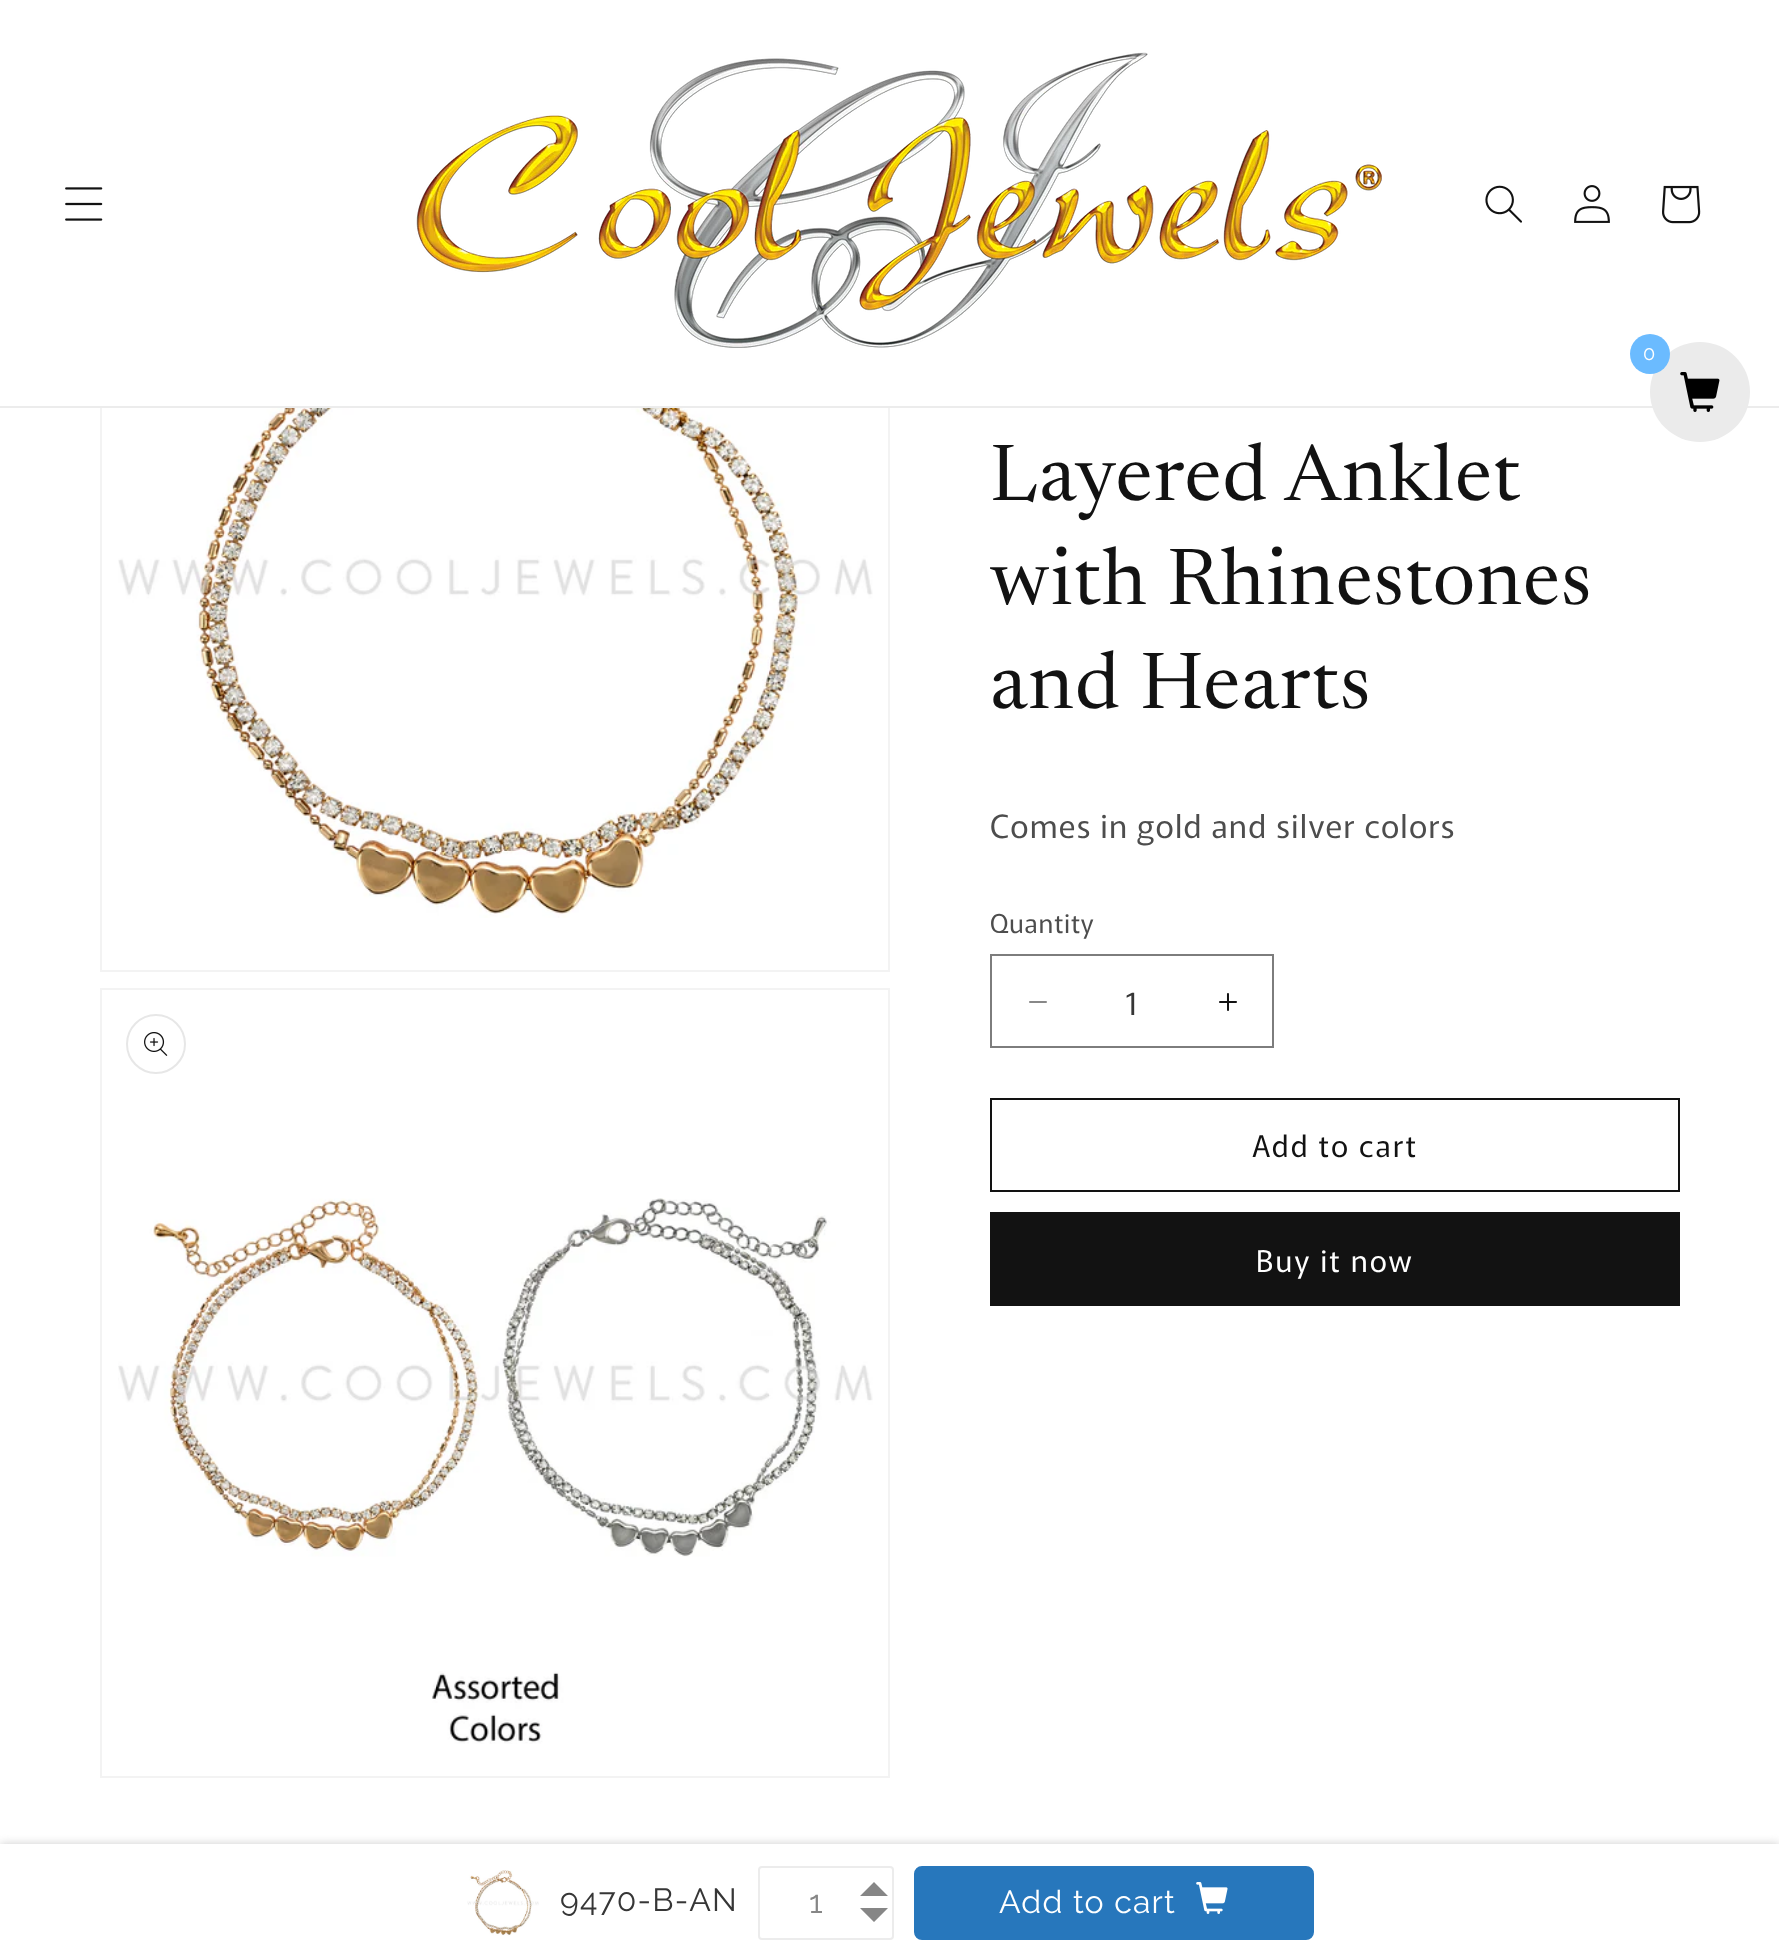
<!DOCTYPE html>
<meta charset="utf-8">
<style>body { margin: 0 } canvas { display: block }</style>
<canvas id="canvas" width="1779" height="1960"></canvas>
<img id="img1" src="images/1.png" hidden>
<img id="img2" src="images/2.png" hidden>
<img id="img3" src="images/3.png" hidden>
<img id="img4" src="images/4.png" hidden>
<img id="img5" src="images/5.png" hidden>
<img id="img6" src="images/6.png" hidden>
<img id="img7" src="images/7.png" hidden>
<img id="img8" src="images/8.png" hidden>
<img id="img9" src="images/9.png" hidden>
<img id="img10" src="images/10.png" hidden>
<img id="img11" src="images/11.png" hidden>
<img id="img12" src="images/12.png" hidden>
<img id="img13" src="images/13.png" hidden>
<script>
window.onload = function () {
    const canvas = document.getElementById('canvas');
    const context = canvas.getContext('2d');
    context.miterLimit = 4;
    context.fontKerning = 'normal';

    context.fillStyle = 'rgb(255, 255, 255)';
    context.fillRect(0, 0, 1779, 1960);
    context.strokeStyle = 'rgb(243, 243, 243)';
    context.lineWidth = 2;
    context.strokeRect(101, 183, 788, 788);
    context.fillRect(100, 182, 790, 224);
    context.fillStyle = 'rgb(236, 236, 236)';
    context.fillRect(0, 406, 1779, 2);
    context.drawImage(document.getElementById('img1'), 65, 187, 38, 34);
    context.drawImage(document.getElementById('img2'), 416, 52, 966, 296);
    context.drawImage(document.getElementById('img3'), 1485, 185, 37, 38);
    context.drawImage(document.getElementById('img4'), 1574, 185, 36, 38);
    context.drawImage(document.getElementById('img5'), 1662, 185, 39, 39);
    context.fillStyle = 'rgb(235, 235, 235)';
    context.beginPath();
    context.arc(1700, 392, 50, 0, 2 * Math.PI);
    context.fill();
    context.fillStyle = 'rgb(107, 187, 255)';
    context.beginPath();
    context.arc(1650, 354, 20, 0, 2 * Math.PI);
    context.fill();
    context.drawImage(document.getElementById('img6'), 1680, 372, 40, 40);
    context.drawImage(document.getElementById('img7'), 118, 408, 755, 510);
    context.strokeRect(101, 989, 788, 788);
    context.beginPath();
    context.arc(156, 1044, 29, 0, 2 * Math.PI);
    context.strokeStyle = 'rgb(231, 231, 231)';
    context.stroke();
    context.drawImage(document.getElementById('img8'), 144, 1032, 24, 24);
    context.drawImage(document.getElementById('img9'), 118, 1198, 755, 546);
    context.drawImage(document.getElementById('img10'), 1029, 1001, 18, 2);
    context.drawImage(document.getElementById('img11'), 1219, 993, 18, 18);
    context.strokeStyle = 'rgb(125, 125, 125)';
    context.strokeRect(991, 955, 282, 92);
    context.strokeStyle = 'rgb(18, 18, 18)';
    context.strokeRect(991, 1099, 688, 92);
    context.fillStyle = 'rgb(18, 18, 18)';
    context.fillRect(990, 1212, 690, 94);
    context.save();
    context.beginPath();
    context.rect(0, 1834, 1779, 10);
    context.clip();
    context.fillStyle = 'rgb(205, 205, 205)';
    context.filter = 'blur(5px)';
    context.beginPath();
    context.rect(0, 1844, 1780, 116);
    context.fill();
    context.filter = 'none';
    context.restore();
    context.drawImage(document.getElementById('img12'), 467, 1870, 72, 66);
    context.beginPath();
    context.roundRect(759, 1867, 134, 72, 3);
    context.strokeStyle = 'rgb(236, 236, 236)';
    context.stroke();
    context.fillStyle = 'rgb(134, 134, 134)';
    context.beginPath();
    context.moveTo(888, 1896);
    context.lineTo(860, 1896);
    context.lineTo(874, 1882);
    context.closePath();
    context.moveTo(860, 1908);
    context.lineTo(888, 1908);
    context.lineTo(874, 1922);
    context.closePath();
    context.fill();
    context.fillStyle = 'rgb(39, 119, 188)';
    context.beginPath();
    context.roundRect(915, 1867, 398, 72, 7);
    context.fill();
    context.strokeStyle = 'rgb(39, 119, 188)';
    context.stroke();
    context.drawImage(document.getElementById('img13'), 1196, 1882, 32, 32);
    context.letterSpacing = '1.2px';
    context.font = '100 20px Raleway';
    context.fillStyle = 'rgb(255, 255, 255)';
    context.fillText('0', 1643, 360);
    context.font = '80px Newsreader';
    context.fillStyle = 'rgb(18, 18, 18)';
    context.fillText('Layered Anklet', 990, 500);
    context.fillText('with Rhinestones', 990, 604);
    context.fillText('and Hearts', 990, 708);
    context.font = '32px Murecho';
    context.fillStyle = 'rgb(77, 77, 77)';
    context.fillText('Comes in gold and silver colors', 990, 838);
    context.letterSpacing = '0.75px';
    context.font = '26px Murecho';
    context.fillText('Quantity', 990, 933);
    context.letterSpacing = '0px';
    context.font = '32px Murecho';
    context.fillStyle = 'rgb(54, 54, 54)';
    context.fillText('1', 1124, 1015);
    context.letterSpacing = '2px';
    context.font = '30px Murecho';
    context.fillStyle = 'rgb(18, 18, 18)';
    context.fillText('Add to cart', 1252, 1157);
    context.fillStyle = 'rgb(255, 255, 255)';
    context.fillText('Buy it now', 1256, 1272);
    context.letterSpacing = '1.2px';
    context.font = '100 32px Raleway';
    context.fillStyle = 'rgb(54, 54, 54)';
    context.fillText('9470-B-AN', 560, 1911);
    context.letterSpacing = '0px';
    context.fillStyle = 'rgb(134, 134, 134)';
    context.fillText('1', 809, 1913);
    context.letterSpacing = '1.2px';
    context.fillStyle = 'rgb(255, 255, 255)';
    context.fillText('Add to cart', 999, 1913);
};
</script>
